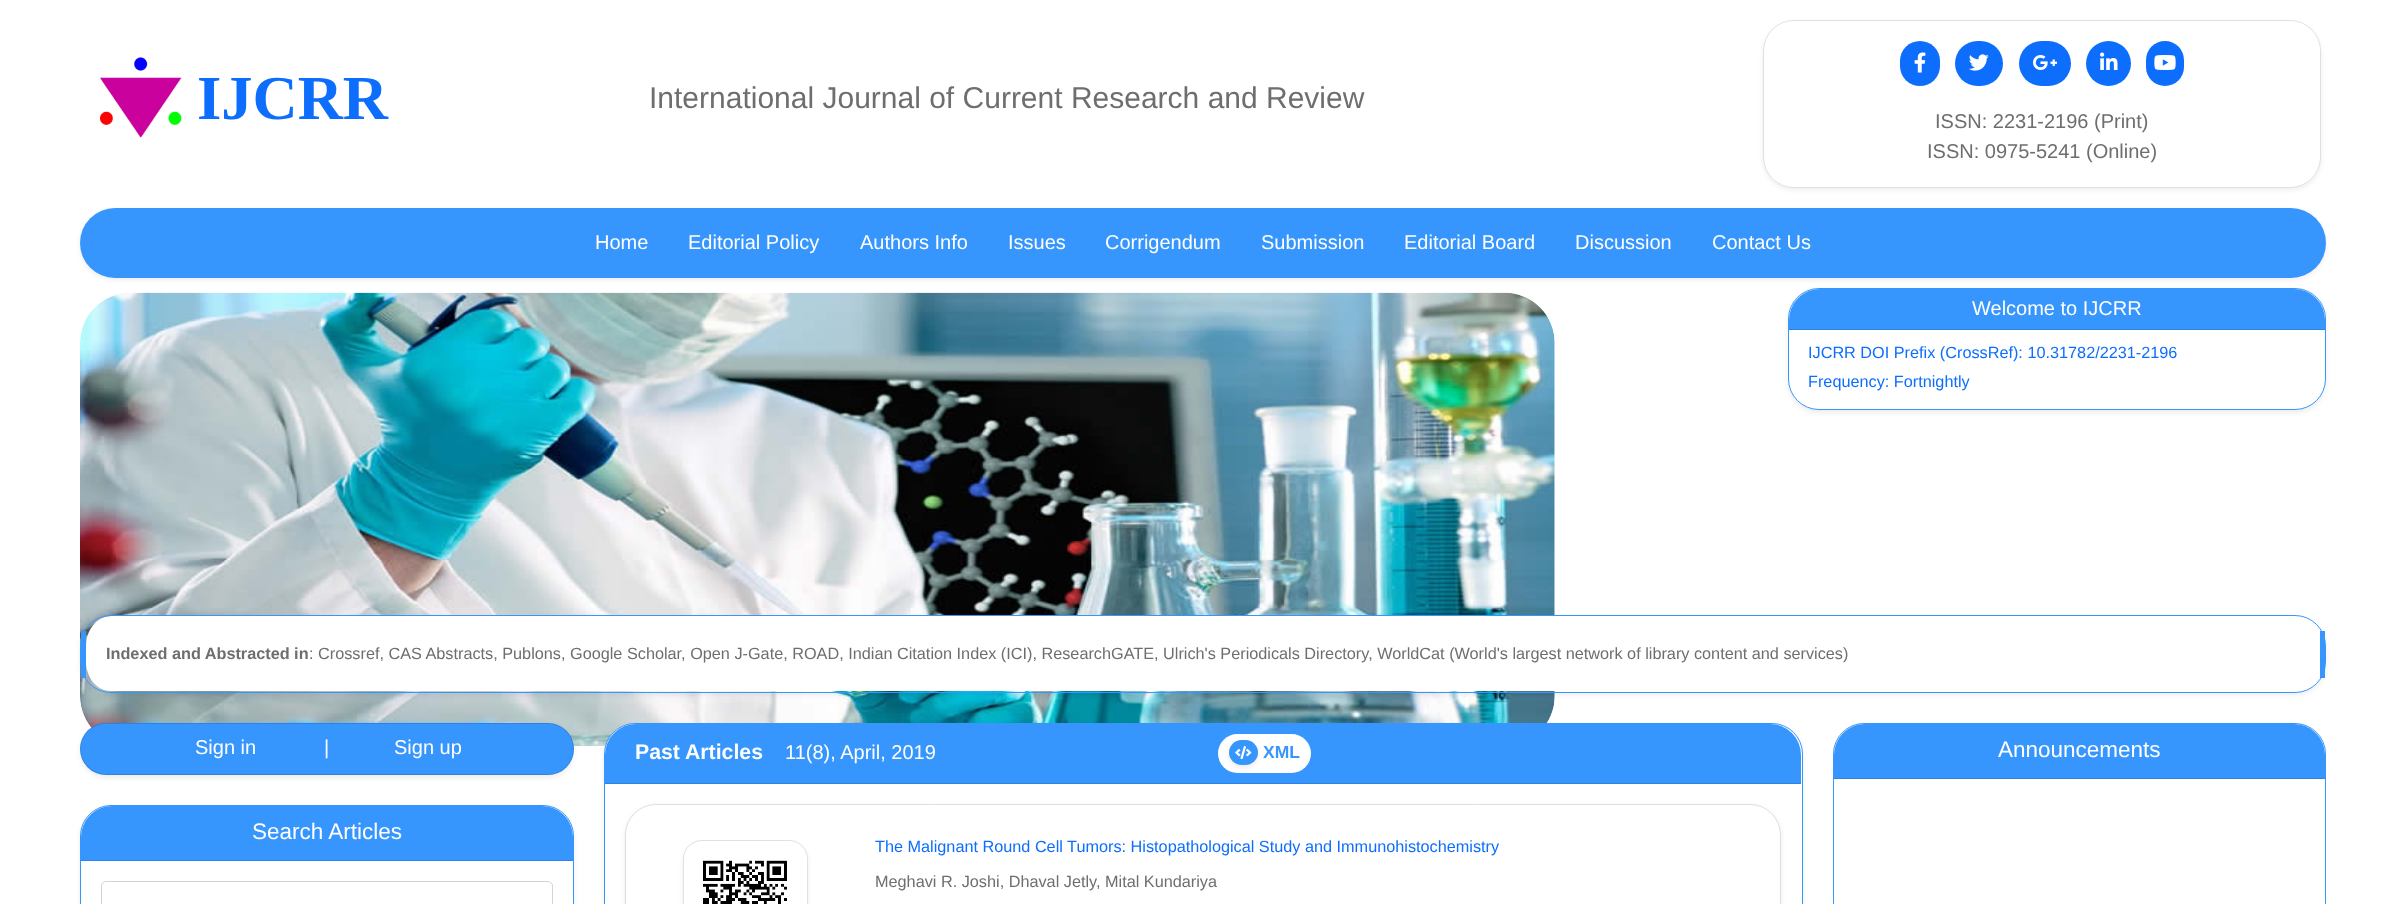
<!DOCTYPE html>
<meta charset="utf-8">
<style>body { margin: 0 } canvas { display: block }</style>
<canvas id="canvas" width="2406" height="904"></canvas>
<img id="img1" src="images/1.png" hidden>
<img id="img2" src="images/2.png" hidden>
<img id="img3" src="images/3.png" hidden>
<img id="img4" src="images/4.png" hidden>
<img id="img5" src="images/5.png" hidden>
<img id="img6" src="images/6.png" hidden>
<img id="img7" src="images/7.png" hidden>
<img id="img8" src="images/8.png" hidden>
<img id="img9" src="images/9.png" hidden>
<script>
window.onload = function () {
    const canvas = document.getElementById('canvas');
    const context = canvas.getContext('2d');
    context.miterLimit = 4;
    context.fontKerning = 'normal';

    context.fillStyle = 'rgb(255, 255, 255)';
    context.fillRect(0, 0, 2406, 904);
    context.drawImage(document.getElementById('img1'), 100, 57, 82, 81);
    context.fillStyle = 'rgba(0, 0, 0, 0.07)';
    context.filter = 'blur(2.5px)';
    context.beginPath();
    context.roundRect(1763, 23, 558, 167, 31);
    context.fill();
    context.filter = 'none';
    context.fillStyle = 'rgb(255, 255, 255)';
    context.beginPath();
    context.roundRect(1763, 20, 558, 168, 31);
    context.fill();
    context.beginPath();
    context.roundRect(1763.5, 20.5, 557, 167, 30.5);
    context.strokeStyle = 'rgba(0, 0, 0, 0.12)';
    context.stroke();
    context.fillStyle = 'rgb(13, 110, 253)';
    context.beginPath();
    context.roundRect(1900, 41, 40, 45, 20);
    context.fill();
    context.drawImage(document.getElementById('img2'), 1914, 52, 12, 21);
    context.beginPath();
    context.roundRect(1955, 41, 48, 45, 22.5);
    context.fill();
    context.drawImage(document.getElementById('img3'), 1969, 54, 20, 17);
    context.beginPath();
    context.roundRect(2019, 41, 52, 45, 22.5);
    context.fill();
    context.drawImage(document.getElementById('img4'), 2033, 55, 24, 15);
    context.beginPath();
    context.arc(2108.5, 63.5, 22.5, 0, 2 * Math.PI);
    context.fill();
    context.drawImage(document.getElementById('img5'), 2100, 52, 18, 18);
    context.beginPath();
    context.roundRect(2146, 41, 38, 45, 19);
    context.fill();
    context.drawImage(document.getElementById('img6'), 2154, 55, 22, 15);
    context.fillStyle = 'rgba(0, 0, 0, 0.07)';
    context.filter = 'blur(2.5px)';
    context.beginPath();
    context.roundRect(1788, 290, 538, 123, 31);
    context.fill();
    context.filter = 'none';
    context.fillStyle = 'rgb(255, 255, 255)';
    context.beginPath();
    context.roundRect(1788.5, 288.5, 537, 121, 30.5);
    context.fill();
    context.strokeStyle = 'rgb(54, 150, 253)';
    context.stroke();
    context.fillStyle = 'rgba(0, 0, 0, 0.07)';
    context.filter = 'blur(2.5px)';
    context.beginPath();
    context.roundRect(80, 210, 2246, 70, 35);
    context.fill();
    context.filter = 'none';
    context.fillStyle = 'rgb(54, 150, 253)';
    context.beginPath();
    context.roundRect(80, 208, 2246, 70, 35);
    context.fill();
    context.drawImage(document.getElementById('img7'), 80, 292, 1475, 455);
    context.beginPath();
    context.roundRect(1789, 289, 536, 41, [31, 31, 0, 0]);
    context.fill();
    context.fillStyle = 'rgb(47, 131, 221)';
    context.fillRect(1789, 329, 536, 1);
    context.save();
    context.beginPath();
    context.moveTo(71, 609);
    context.lineTo(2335, 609);
    context.lineTo(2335, 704);
    context.lineTo(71, 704);
    context.closePath();
    context.moveTo(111, 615);
    context.lineTo(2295, 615);
    context.bezierCurveTo(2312, 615, 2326, 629, 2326, 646);
    context.lineTo(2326, 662);
    context.bezierCurveTo(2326, 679, 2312, 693, 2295, 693);
    context.lineTo(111, 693);
    context.bezierCurveTo(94, 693, 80, 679, 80, 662);
    context.lineTo(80, 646);
    context.bezierCurveTo(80, 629, 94, 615, 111, 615);
    context.closePath();
    context.clip('evenodd');
    context.fillStyle = 'rgba(0, 0, 0, 0.07)';
    context.filter = 'blur(2.5px)';
    context.beginPath();
    context.roundRect(80, 618, 2246, 77, 31);
    context.fill();
    context.filter = 'none';
    context.restore();
    context.fillStyle = 'rgb(255, 255, 255)';
    context.beginPath();
    context.moveTo(111, 616);
    context.lineTo(2295, 616);
    context.bezierCurveTo(2309, 616, 2320, 630, 2320, 646);
    context.lineTo(2320, 661);
    context.bezierCurveTo(2320, 678, 2309, 691, 2295, 691);
    context.lineTo(111, 691);
    context.bezierCurveTo(97, 691, 86, 678, 86, 661);
    context.lineTo(86, 646);
    context.bezierCurveTo(86, 630, 97, 616, 111, 616);
    context.closePath();
    context.fill();
    context.beginPath();
    context.roundRect(80.5, 615.5, 2245, 77, 30.5);
    context.stroke();
    context.fillStyle = 'rgb(54, 150, 253)';
    context.fillRect(2320, 631, 5, 47);
    context.fillRect(81, 631, 5, 47);
    context.fillStyle = 'rgba(0, 0, 0, 0.07)';
    context.filter = 'blur(2.5px)';
    context.beginPath();
    context.roundRect(80, 725, 494, 53, 26.5);
    context.fill();
    context.filter = 'none';
    context.fillStyle = 'rgb(54, 150, 253)';
    context.beginPath();
    context.roundRect(80, 723, 494, 52, 26);
    context.fill();
    context.beginPath();
    context.roundRect(80.5, 723.5, 493, 51, 25.5);
    context.strokeStyle = 'rgba(0, 0, 0, 0.12)';
    context.stroke();
    context.fillStyle = 'rgba(0, 0, 0, 0.07)';
    context.filter = 'blur(2.5px)';
    context.beginPath();
    context.roundRect(80, 808, 494, 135, 31);
    context.fill();
    context.filter = 'none';
    context.fillStyle = 'rgb(255, 255, 255)';
    context.beginPath();
    context.roundRect(80.5, 805.5, 493, 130, 30.5);
    context.fill();
    context.strokeStyle = 'rgb(54, 150, 253)';
    context.stroke();
    context.fillStyle = 'rgb(54, 150, 253)';
    context.beginPath();
    context.roundRect(81, 806, 492, 55, [31, 31, 0, 0]);
    context.fill();
    context.fillStyle = 'rgb(47, 131, 221)';
    context.fillRect(81, 860, 492, 1);
    context.beginPath();
    context.roundRect(101.5, 881.5, 451, 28, 4.5);
    context.strokeStyle = 'rgb(206, 212, 218)';
    context.stroke();
    context.fillStyle = 'rgba(0, 0, 0, 0.07)';
    context.filter = 'blur(2.5px)';
    context.beginPath();
    context.roundRect(604, 725, 1199, 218, 31);
    context.fill();
    context.filter = 'none';
    context.fillStyle = 'rgb(255, 255, 255)';
    context.beginPath();
    context.roundRect(604.5, 723.5, 1198, 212, 30.5);
    context.fill();
    context.strokeStyle = 'rgb(54, 150, 253)';
    context.stroke();
    context.fillStyle = 'rgb(54, 150, 253)';
    context.beginPath();
    context.roundRect(605, 724, 1196, 60, [31, 31, 0, 0]);
    context.fill();
    context.fillStyle = 'rgb(47, 131, 221)';
    context.fillRect(605, 783, 1196, 1);
    context.fillStyle = 'rgb(255, 255, 255)';
    context.beginPath();
    context.roundRect(1218, 734, 93, 39, 19.5);
    context.fill();
    context.fillStyle = 'rgba(0, 0, 0, 0.07)';
    context.filter = 'blur(2.5px)';
    context.beginPath();
    context.roundRect(1229, 743, 29, 25, 12.5);
    context.fill();
    context.filter = 'none';
    context.fillStyle = 'rgb(54, 150, 253)';
    context.beginPath();
    context.roundRect(1229, 740, 29, 25, 12.5);
    context.fill();
    context.drawImage(document.getElementById('img8'), 1235, 746, 17, 14);
    context.fillStyle = 'rgba(0, 0, 0, 0.07)';
    context.filter = 'blur(2.5px)';
    context.beginPath();
    context.roundRect(625, 806, 1156, 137, 31);
    context.fill();
    context.filter = 'none';
    context.fillStyle = 'rgb(255, 255, 255)';
    context.beginPath();
    context.roundRect(625.5, 804.5, 1155, 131, 30.5);
    context.fill();
    context.strokeStyle = 'rgb(223, 223, 223)';
    context.stroke();
    context.fillStyle = 'rgba(0, 0, 0, 0.07)';
    context.filter = 'blur(2.5px)';
    context.beginPath();
    context.roundRect(683, 843, 125, 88, 19);
    context.fill();
    context.filter = 'none';
    context.fillStyle = 'rgb(255, 255, 255)';
    context.beginPath();
    context.roundRect(683.5, 840.5, 124, 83, 18.5);
    context.fill();
    context.strokeStyle = 'rgb(222, 226, 230)';
    context.stroke();
    context.drawImage(document.getElementById('img9'), 703, 860, 84, 44);
    context.beginPath();
    context.roundRect(1833.5, 723.5, 492, 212, 30.5);
    context.strokeStyle = 'rgb(54, 150, 253)';
    context.stroke();
    context.fillStyle = 'rgb(54, 150, 253)';
    context.beginPath();
    context.roundRect(1834, 724, 491, 55, [31, 31, 0, 0]);
    context.fill();
    context.fillStyle = 'rgb(47, 131, 221)';
    context.fillRect(1834, 778, 491, 1);
    context.font = 'bold 62.5px Liberation Serif';
    context.fillStyle = 'rgb(13, 110, 253)';
    context.fillText('IJCRR', 197, 119);
    context.font = '30px Liberation Sans';
    context.fillStyle = 'rgb(110, 110, 110)';
    context.fillText('International Journal of Current Research and Review', 649, 108);
    context.font = '20px Liberation Sans';
    context.fillText('ISSN: 2231-2196 (Print)', 1935, 128);
    context.fillText('ISSN: 0975-5241 (Online)', 1927, 158);
    context.fillStyle = 'rgb(255, 255, 255)';
    context.fillText('Home', 595, 249);
    context.fillText('Editorial Policy', 688, 249);
    context.fillText('Authors Info', 860, 249);
    context.fillText('Issues', 1008, 249);
    context.fillText('Corrigendum', 1105, 249);
    context.fillText('Submission', 1261, 249);
    context.fillText('Editorial Board', 1404, 249);
    context.fillText('Discussion', 1575, 249);
    context.fillText('Contact Us', 1712, 249);
    context.fillText('Welcome to IJCRR', 1972, 315);
    context.font = '16.25px Liberation Sans';
    context.fillStyle = 'rgb(13, 110, 253)';
    context.fillText('IJCRR DOI Prefix (CrossRef): 10.31782/2231-2196', 1808, 358);
    context.fillText('Frequency: Fortnightly', 1808, 387);
    context.font = 'bold 16.25px Liberation Sans';
    context.fillStyle = 'rgb(110, 110, 110)';
    context.fillText('Indexed and Abstracted in', 106, 659);
    context.font = '16.25px Liberation Sans';
    context.fillText(': Crossref, CAS Abstracts, Publons, Google Scholar, Open J-Gate, ROAD, Indian Citation Index (ICI), ResearchGATE, Ulrich\'s Periodicals Directory, WorldCat (World\'s largest network of library content and services)', 309, 659);
    context.font = '20px Liberation Sans';
    context.fillStyle = 'rgb(255, 255, 255)';
    context.fillText('Sign in', 195, 754);
    context.fillText('|', 324, 754);
    context.fillText('Sign up', 394, 754);
    context.font = '22.5px Liberation Sans';
    context.fillText('Search Articles', 252, 839);
    context.font = 'bold 21.25px Liberation Sans';
    context.fillText('Past Articles', 635, 759);
    context.font = '20px Liberation Sans';
    context.fillText('11(8), April, 2019', 785, 759);
    context.font = 'bold 17.5px Liberation Sans';
    context.fillStyle = 'rgb(54, 150, 253)';
    context.fillText('XML', 1263, 758);
    context.font = '16.25px Liberation Sans';
    context.fillStyle = 'rgb(13, 110, 253)';
    context.fillText('The Malignant Round Cell Tumors: Histopathological Study and Immunohistochemistry', 875, 852);
    context.fillStyle = 'rgb(110, 110, 110)';
    context.fillText('Meghavi R. Joshi, Dhaval Jetly, Mital Kundariya', 875, 887);
    context.font = '22.5px Liberation Sans';
    context.fillStyle = 'rgb(255, 255, 255)';
    context.fillText('Announcements', 1998, 757);
};
</script>
